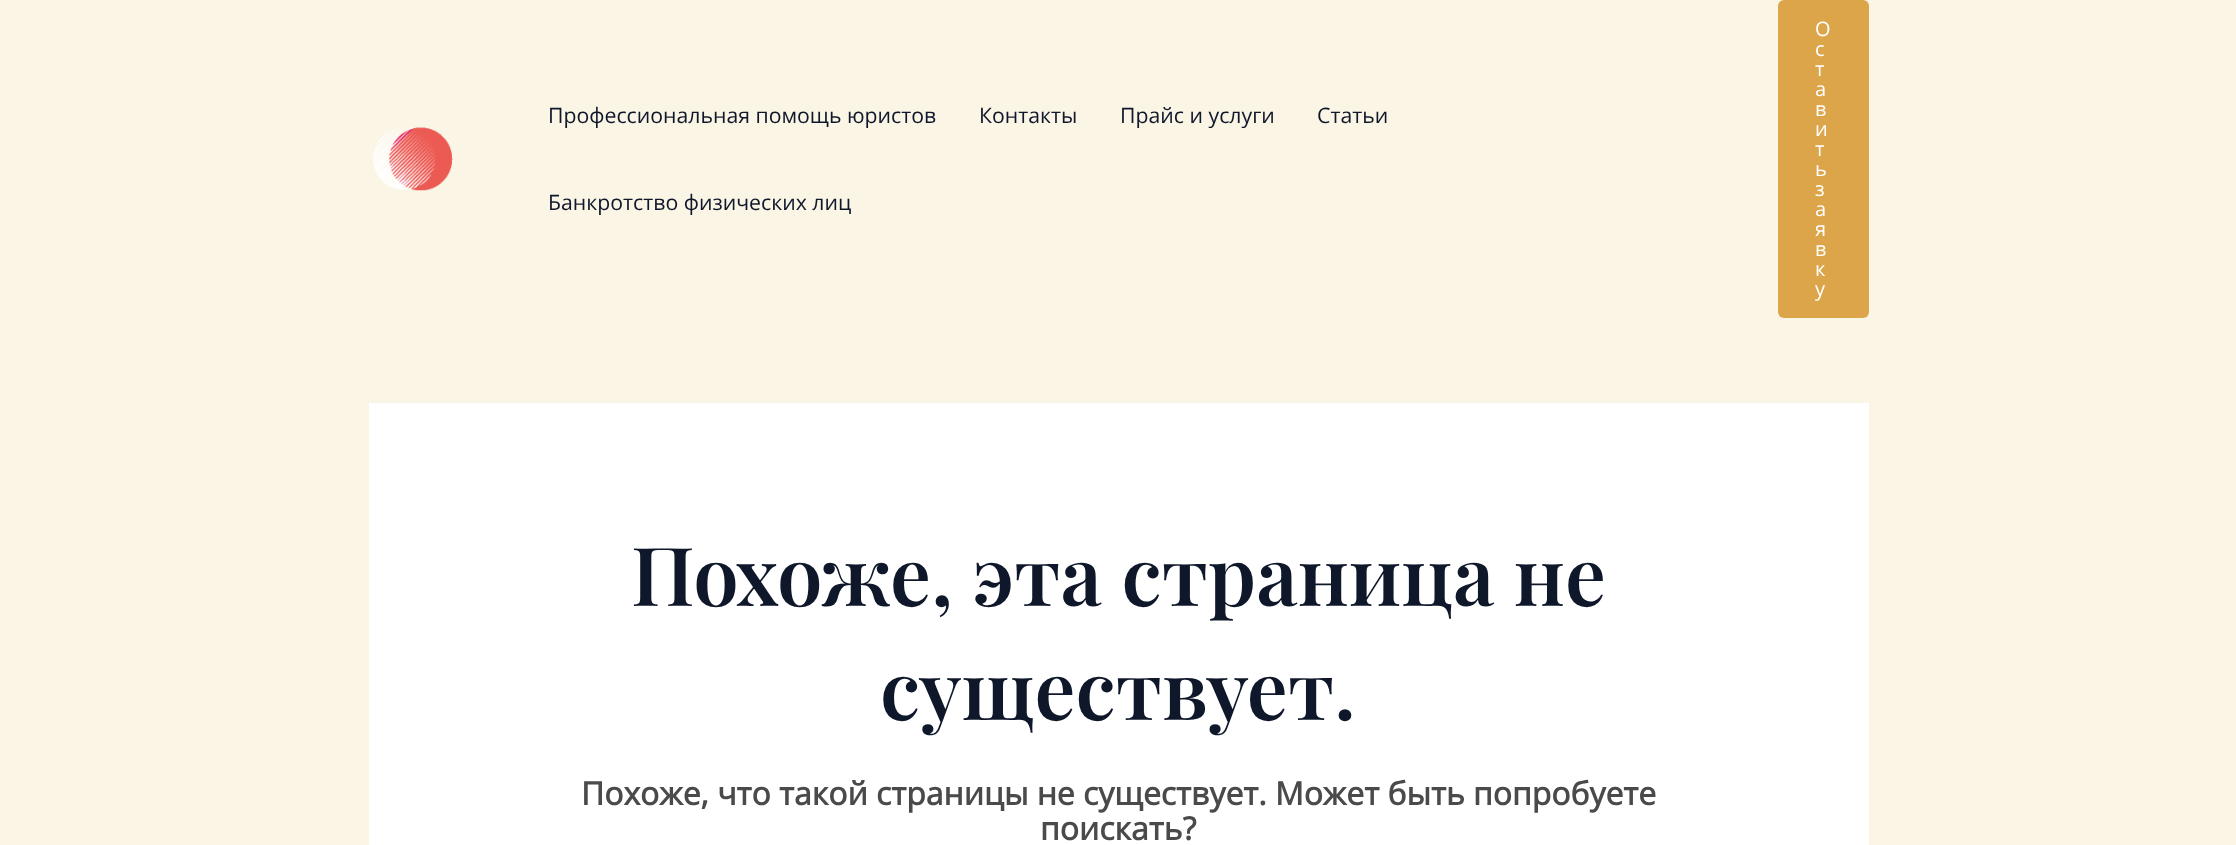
<!DOCTYPE html>
<meta charset="utf-8">
<style>body { margin: 0 } canvas { display: block }</style>
<canvas id="canvas" width="2236" height="845"></canvas>
<img id="img1" src="images/1.png" hidden>
<script>
window.onload = function () {
    const canvas = document.getElementById('canvas');
    const context = canvas.getContext('2d');
    context.miterLimit = 4;
    context.fontKerning = 'normal';

    context.fillStyle = 'rgb(250, 245, 229)';
    context.fillRect(0, 0, 2236, 845);
    context.drawImage(document.getElementById('img1'), 373, 127, 80, 64);
    context.fillStyle = 'rgb(220, 165, 74)';
    context.beginPath();
    context.roundRect(1778, 0, 91, 318, 6);
    context.fill();
    context.fillStyle = 'rgb(255, 255, 255)';
    context.fillRect(369, 403, 1500, 442);
    context.font = '21.25px Open Sans';
    context.fillStyle = 'rgb(15, 23, 42)';
    context.fillText('Профессиональная помощь юристов', 548, 123);
    context.fillText('Контакты', 979, 123);
    context.fillText('Прайс и услуги', 1120, 123);
    context.fillText('Статьи', 1317, 123);
    context.fillText('Банкротство физических лиц', 548, 210);
    context.font = '20px Open Sans';
    context.fillStyle = 'rgb(255, 255, 255)';
    context.fillText('О', 1815, 36);
    context.fillText('с', 1815, 56);
    context.fillText('т', 1815, 76);
    context.fillText('а', 1815, 96);
    context.fillText('в', 1815, 116);
    context.fillText('и', 1815, 136);
    context.fillText('т', 1815, 156);
    context.fillText('ь', 1815, 176);
    context.fillText('з', 1815, 196);
    context.fillText('а', 1815, 216);
    context.fillText('я', 1815, 236);
    context.fillText('в', 1815, 256);
    context.fillText('к', 1815, 276);
    context.fillText('у', 1815, 296);
    context.font = '600 81.25px Playfair Display';
    context.fillStyle = 'rgb(15, 23, 42)';
    context.fillText('Похоже, эта страница не', 631, 606);
    context.fillText('существует.', 880, 720);
    context.font = 'bold 31.9px Open Sans';
    context.fillStyle = 'rgb(74, 74, 74)';
    context.fillText('Похоже, что такой страницы не существует. Может быть попробуете', 581, 805);
    context.fillText('поискать?', 1040, 840);
};
</script>
